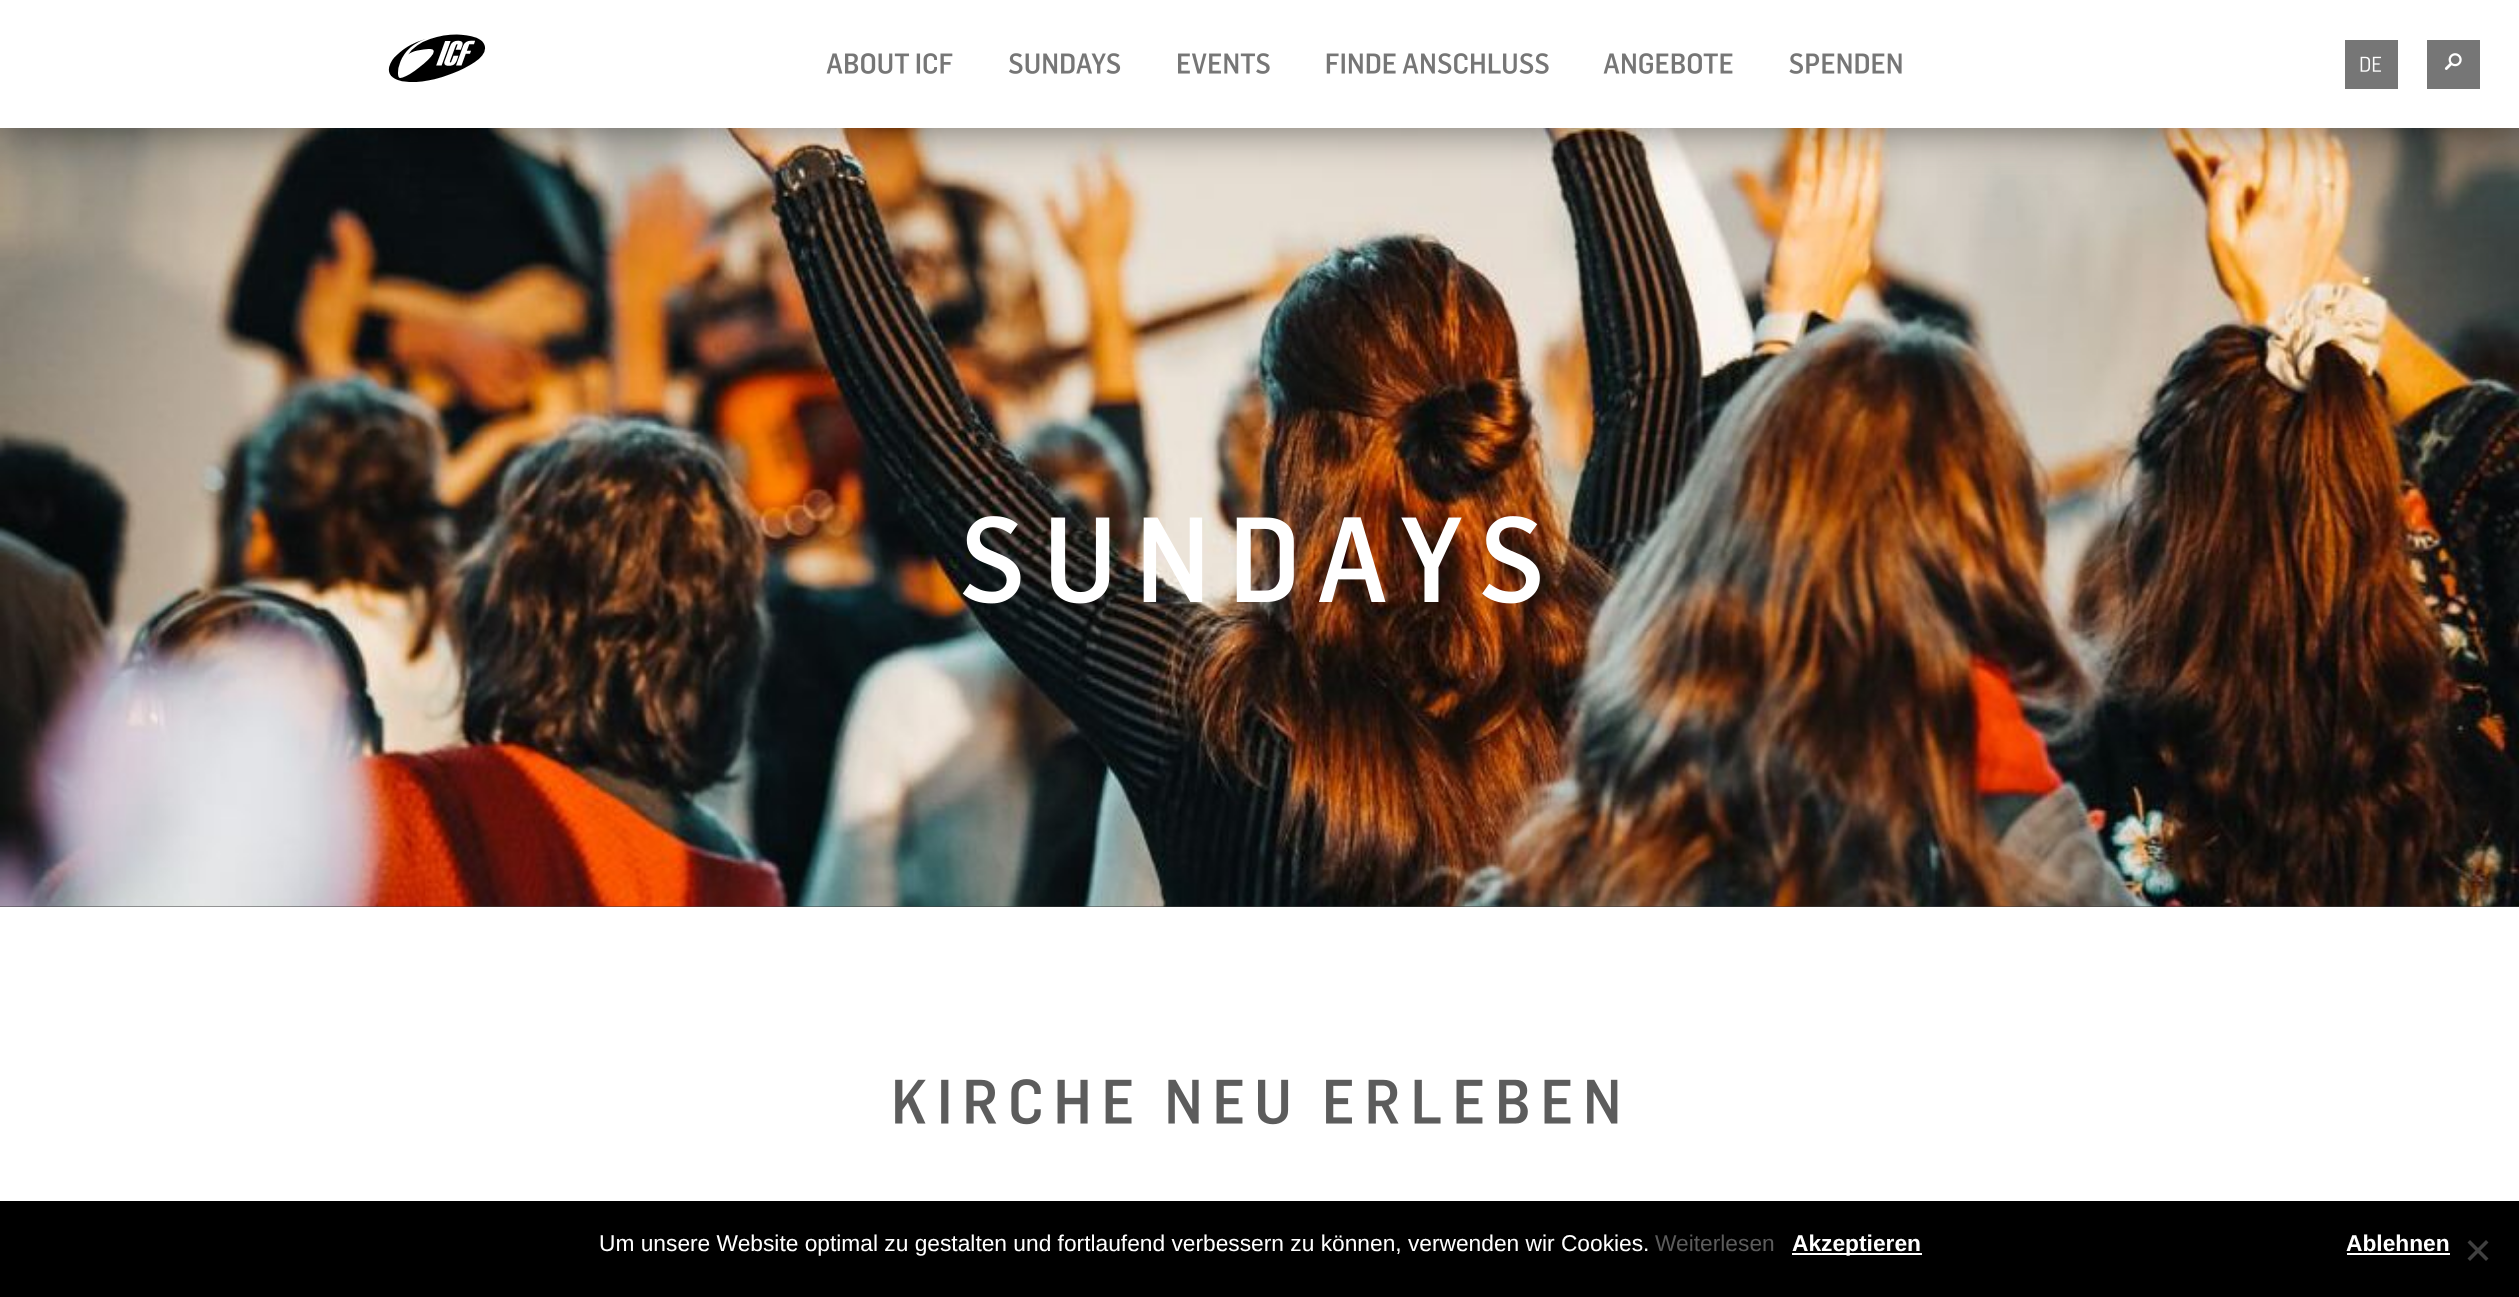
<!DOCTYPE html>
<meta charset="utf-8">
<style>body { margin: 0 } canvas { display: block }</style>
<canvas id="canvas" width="2519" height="1297"></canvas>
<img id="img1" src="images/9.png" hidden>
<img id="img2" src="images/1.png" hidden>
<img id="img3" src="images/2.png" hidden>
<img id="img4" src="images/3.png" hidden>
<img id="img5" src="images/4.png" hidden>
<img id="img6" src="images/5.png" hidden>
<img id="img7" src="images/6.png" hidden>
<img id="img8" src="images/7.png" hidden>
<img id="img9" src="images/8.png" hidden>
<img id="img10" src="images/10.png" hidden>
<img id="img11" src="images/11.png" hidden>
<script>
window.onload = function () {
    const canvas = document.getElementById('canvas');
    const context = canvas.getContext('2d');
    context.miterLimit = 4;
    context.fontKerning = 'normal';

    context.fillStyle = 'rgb(255, 255, 255)';
    context.fillRect(0, 0, 2519, 1297);
    context.fillStyle = 'rgb(64, 64, 64)';
    context.fillRect(0, 906, 2519, 1);
    context.drawImage(document.getElementById('img1'), 0, 128, 2519, 779);
    context.fillStyle = 'rgba(0, 0, 0, 0.5)';
    context.filter = 'blur(22px)';
    context.beginPath();
    context.rect(0, 0, 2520, 128);
    context.fill();
    context.filter = 'none';
    context.fillStyle = 'rgb(255, 255, 255)';
    context.fillRect(0, 0, 2519, 128);
    context.drawImage(document.getElementById('img2'), 826, 53, 127, 21);
    context.drawImage(document.getElementById('img3'), 1009, 53, 112, 21);
    context.drawImage(document.getElementById('img4'), 1178, 53, 92, 21);
    context.drawImage(document.getElementById('img5'), 1326, 53, 223, 21);
    context.drawImage(document.getElementById('img6'), 1603, 53, 130, 21);
    context.drawImage(document.getElementById('img7'), 1789, 53, 113, 21);
    context.fillStyle = 'rgb(118, 118, 118)';
    context.fillRect(2345, 40, 53, 49);
    context.drawImage(document.getElementById('img8'), 2360, 56, 21, 16);
    context.fillRect(2427, 40, 53, 49);
    context.drawImage(document.getElementById('img9'), 2444, 53, 18, 17);
    context.drawImage(document.getElementById('img10'), 962, 516, 578, 88);
    context.drawImage(document.getElementById('img11'), 895, 1079, 723, 46);
    context.fillStyle = 'rgb(0, 0, 0)';
    context.fillRect(0, 1201, 2519, 96);
    context.fillStyle = 'rgb(255, 255, 255)';
    context.fillRect(1792, 1253, 130, 2);
    context.fillRect(2347, 1253, 103, 2);
    context.fillStyle = 'rgb(64, 64, 64)';
    context.beginPath();
    context.moveTo(2486, 1240);
    context.lineTo(2488.5, 1242.5);
    context.lineTo(2470, 1261);
    context.lineTo(2467.5, 1258.5);
    context.closePath();
    context.fill();
    context.beginPath();
    context.moveTo(2467.5, 1242.5);
    context.lineTo(2470, 1240);
    context.lineTo(2488.5, 1258.5);
    context.lineTo(2486, 1261);
    context.closePath();
    context.fill();
    context.font = '66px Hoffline';
    context.fillStyle = 'rgb(0, 0, 0)';
    context.fillText('!', 382, 82);
    context.font = '22.75px Liberation Sans';
    context.fillStyle = 'rgb(255, 255, 255)';
    context.fillText('Um unsere Website optimal zu gestalten und fortlaufend verbessern zu können, verwenden wir Cookies.', 599, 1251);
    context.fillStyle = 'rgb(92, 92, 92)';
    context.fillText('Weiterlesen', 1655, 1251);
    context.font = 'bold 22.75px Liberation Sans';
    context.fillStyle = 'rgb(255, 255, 255)';
    context.fillText('Akzeptieren', 1792, 1251);
    context.fillText('Ablehnen', 2346, 1251);
};
</script>
